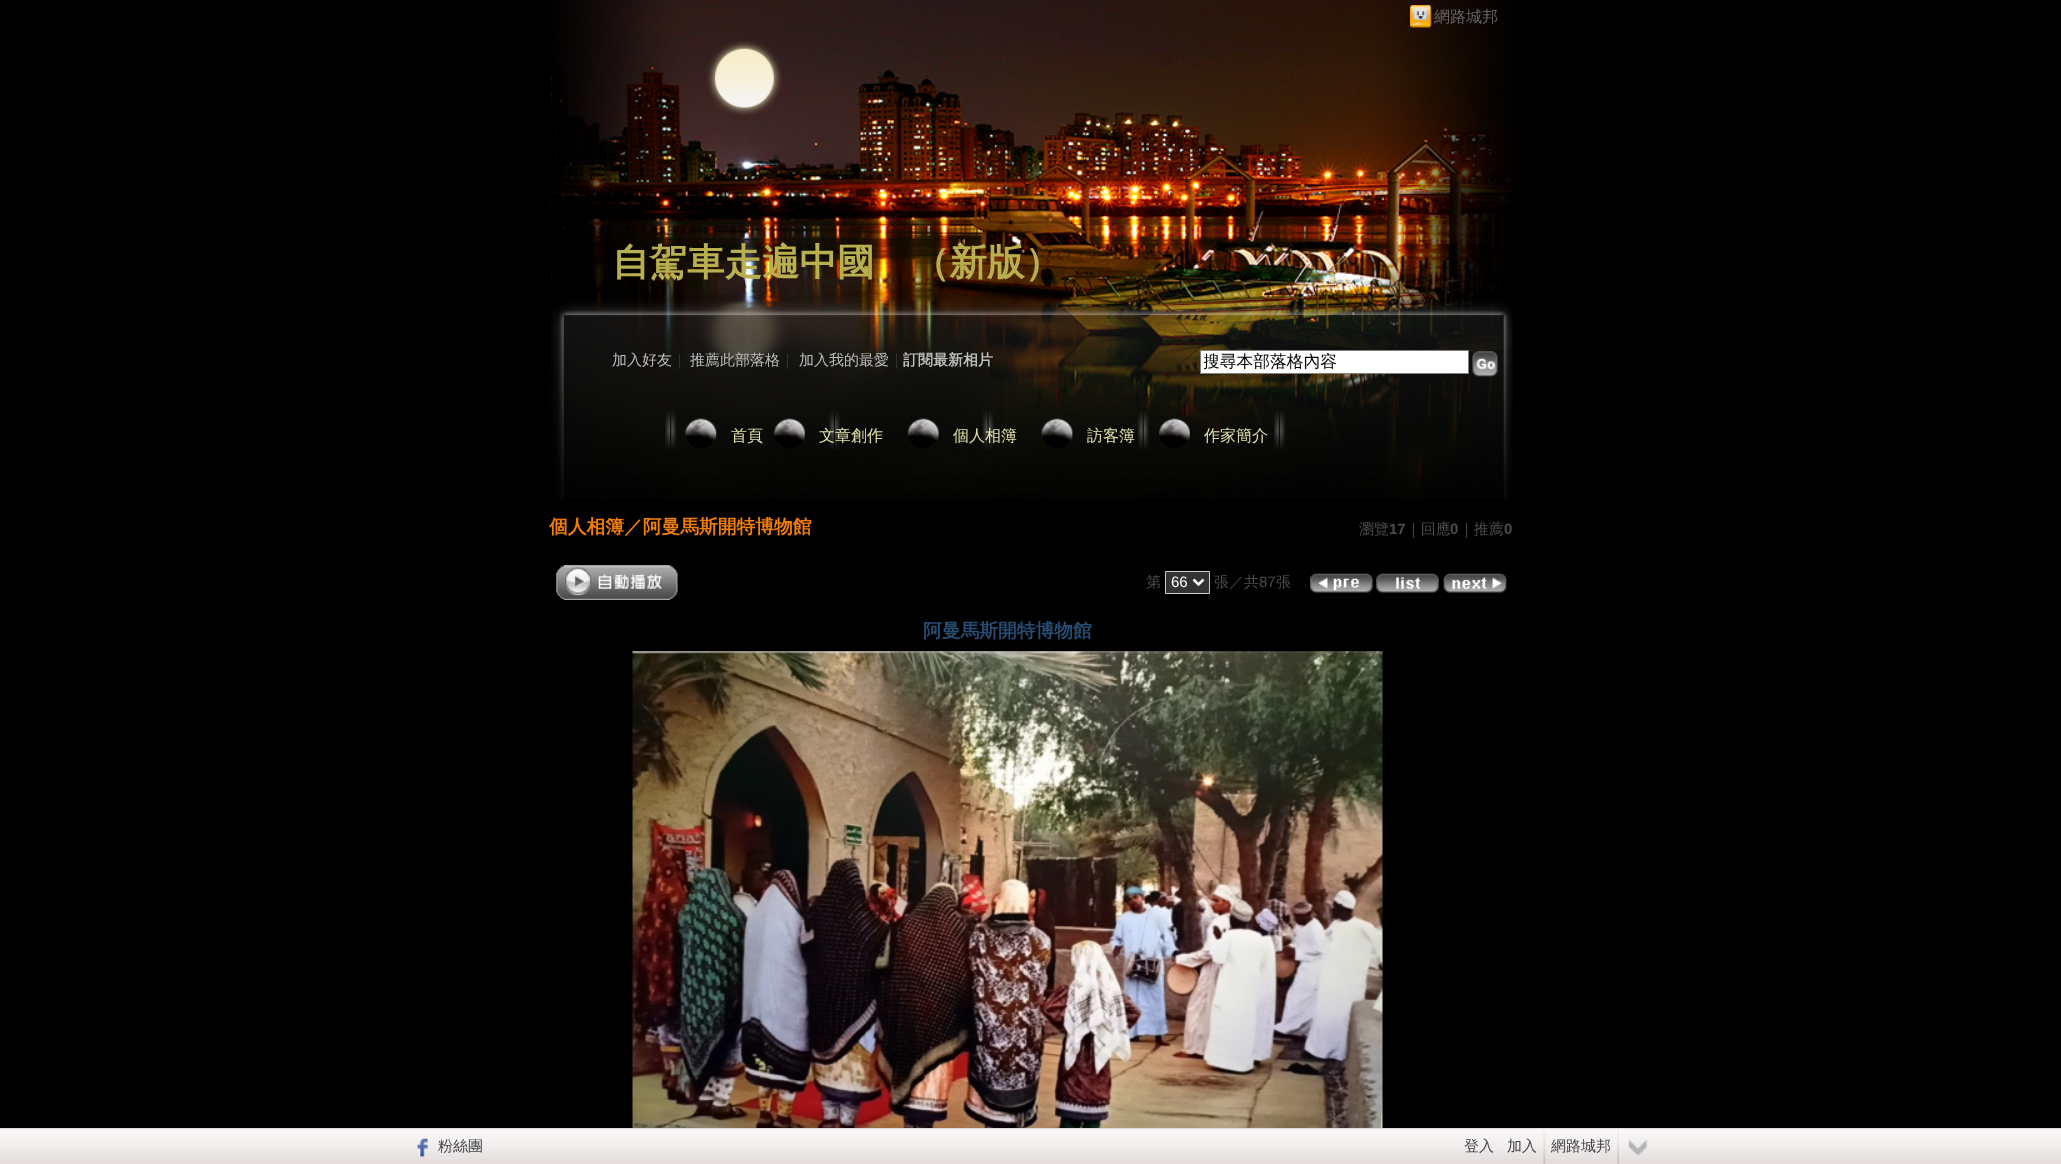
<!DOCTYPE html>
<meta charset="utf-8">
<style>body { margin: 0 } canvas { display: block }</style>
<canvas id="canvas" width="2061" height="1164"></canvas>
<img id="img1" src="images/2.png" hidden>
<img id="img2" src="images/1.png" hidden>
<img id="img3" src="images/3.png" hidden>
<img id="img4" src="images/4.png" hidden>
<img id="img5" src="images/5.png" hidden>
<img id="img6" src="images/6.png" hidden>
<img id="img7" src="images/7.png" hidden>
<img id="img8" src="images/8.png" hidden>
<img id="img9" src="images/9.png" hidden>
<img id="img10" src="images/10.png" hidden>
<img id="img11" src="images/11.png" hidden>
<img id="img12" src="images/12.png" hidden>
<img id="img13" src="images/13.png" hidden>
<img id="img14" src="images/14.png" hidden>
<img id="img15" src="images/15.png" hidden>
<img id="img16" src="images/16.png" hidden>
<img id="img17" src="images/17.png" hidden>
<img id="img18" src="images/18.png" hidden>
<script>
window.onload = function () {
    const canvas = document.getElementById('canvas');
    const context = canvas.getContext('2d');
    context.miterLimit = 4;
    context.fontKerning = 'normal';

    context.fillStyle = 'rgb(0, 0, 0)';
    context.fillRect(0, 0, 2061, 1164);
    context.drawImage(document.getElementById('img1'), 550, 0, 963, 500);
    context.drawImage(document.getElementById('img2'), 1410, 5, 22, 23);
    context.fillStyle = 'rgb(255, 255, 255)';
    context.beginPath();
    context.rect(1200.5, 350.5, 268, 23);
    context.fill();
    context.strokeStyle = 'rgb(128, 128, 128)';
    context.stroke();
    context.drawImage(document.getElementById('img3'), 1472, 351, 26, 26);
    context.drawImage(document.getElementById('img4'), 685, 418, 32, 31);
    context.drawImage(document.getElementById('img5'), 774, 418, 31, 31);
    context.drawImage(document.getElementById('img6'), 907, 418, 32, 31);
    context.drawImage(document.getElementById('img7'), 1041, 418, 32, 31);
    context.drawImage(document.getElementById('img8'), 1159, 418, 31, 31);
    context.drawImage(document.getElementById('img9'), 556, 565, 122, 35);
    context.fillStyle = 'rgb(51, 51, 51)';
    context.beginPath();
    context.rect(1165.5, 571.5, 44, 22);
    context.fill();
    context.strokeStyle = 'rgb(204, 204, 204)';
    context.stroke();
    context.beginPath();
    context.moveTo(1193.5, 579.5);
    context.lineTo(1198.5, 584.5);
    context.lineTo(1203.5, 579.5);
    context.strokeStyle = 'rgb(255, 255, 255)';
    context.lineWidth = 2.5;
    context.stroke();
    context.drawImage(document.getElementById('img10'), 1310, 573, 63, 20);
    context.drawImage(document.getElementById('img11'), 1376, 573, 63, 20);
    context.drawImage(document.getElementById('img12'), 1443, 573, 64, 20);
    context.drawImage(document.getElementById('img13'), 632, 651, 751, 477);
    context.drawImage(document.getElementById('img14'), 0, 1128, 2061, 36);
    context.drawImage(document.getElementById('img15'), 417, 1138, 11, 19);
    context.drawImage(document.getElementById('img16'), 1543, 1130, 3, 34);
    context.drawImage(document.getElementById('img17'), 1617, 1130, 2, 34);
    context.drawImage(document.getElementById('img18'), 1628, 1139, 20, 17);
    context.font = '500 16px WenQuanYi Zen Hei';
    context.fillStyle = 'rgb(102, 102, 102)';
    context.fillText('網路城邦', 1434, 22);
    context.font = 'bold 37.5px WenQuanYi Zen Hei';
    context.fillStyle = 'rgb(184, 176, 79)';
    context.fillText('自駕車走遍中國', 612, 275);
    context.fillText('（新版）', 912, 275);
    context.font = '500 15px WenQuanYi Zen Hei';
    context.fillStyle = 'rgb(189, 189, 189)';
    context.fillText('加入好友', 612, 365);
    context.fillStyle = 'rgb(51, 51, 51)';
    context.fillText('｜', 672, 365);
    context.fillStyle = 'rgb(189, 189, 189)';
    context.fillText('推薦此部落格', 690, 365);
    context.fillStyle = 'rgb(51, 51, 51)';
    context.fillText('｜', 780, 365);
    context.fillStyle = 'rgb(189, 189, 189)';
    context.fillText('加入我的最愛', 799, 365);
    context.fillStyle = 'rgb(51, 51, 51)';
    context.fillText('｜', 889, 365);
    context.font = 'bold 15px WenQuanYi Zen Hei';
    context.fillStyle = 'rgb(189, 189, 189)';
    context.fillText('訂閱最新相片', 903, 365);
    context.save();
    context.beginPath();
    context.rect(1204, 351, 261, 22);
    context.clip();
    context.font = '500 16.75px WenQuanYi Zen Hei';
    context.fillStyle = 'rgb(0, 0, 0)';
    context.fillText('搜尋本部落格內容', 1203, 367);
    context.restore();
    context.font = '500 16px WenQuanYi Zen Hei';
    context.fillStyle = 'rgb(226, 226, 173)';
    context.fillText('首頁', 731, 441);
    context.fillText('文章創作', 819, 441);
    context.fillText('個人相簿', 953, 441);
    context.fillText('訪客簿', 1087, 441);
    context.fillText('作家簡介', 1204, 441);
    context.font = 'bold 18.75px WenQuanYi Zen Hei';
    context.fillStyle = 'rgb(244, 126, 0)';
    context.fillText('個人相簿／阿曼馬斯開特博物館', 549, 533);
    context.font = '500 15px WenQuanYi Zen Hei';
    context.fillStyle = 'rgb(77, 77, 77)';
    context.fillText('瀏覽', 1359, 534);
    context.font = 'bold 15px Liberation Sans';
    context.fillText('17', 1389, 534);
    context.font = '500 15px WenQuanYi Zen Hei';
    context.fillText('｜回應', 1406, 534);
    context.font = 'bold 15px Liberation Sans';
    context.fillText('0', 1450, 534);
    context.font = '500 15px WenQuanYi Zen Hei';
    context.fillText('｜推薦', 1459, 534);
    context.font = 'bold 15px Liberation Sans';
    context.fillText('0', 1504, 534);
    context.font = '500 15px WenQuanYi Zen Hei';
    context.fillText('第', 1146, 587);
    context.font = '15px Liberation Sans';
    context.fillStyle = 'rgb(255, 255, 255)';
    context.fillText('66', 1171, 587);
    context.font = '500 15px WenQuanYi Zen Hei';
    context.fillStyle = 'rgb(77, 77, 77)';
    context.fillText('張／共', 1214, 587);
    context.font = '15px Liberation Sans';
    context.fillText('87', 1259, 587);
    context.font = '500 15px WenQuanYi Zen Hei';
    context.fillText('張', 1276, 587);
    context.font = 'bold 18.75px WenQuanYi Zen Hei';
    context.fillStyle = 'rgb(39, 77, 116)';
    context.fillText('阿曼馬斯開特博物館', 923, 637);
    context.font = '500 15px WenQuanYi Zen Hei';
    context.fillStyle = 'rgb(68, 68, 68)';
    context.fillText('粉絲團', 438, 1151);
    context.fillText('登入', 1464, 1151);
    context.fillText('加入', 1507, 1151);
    context.fillText('網路城邦', 1551, 1151);
};
</script>
